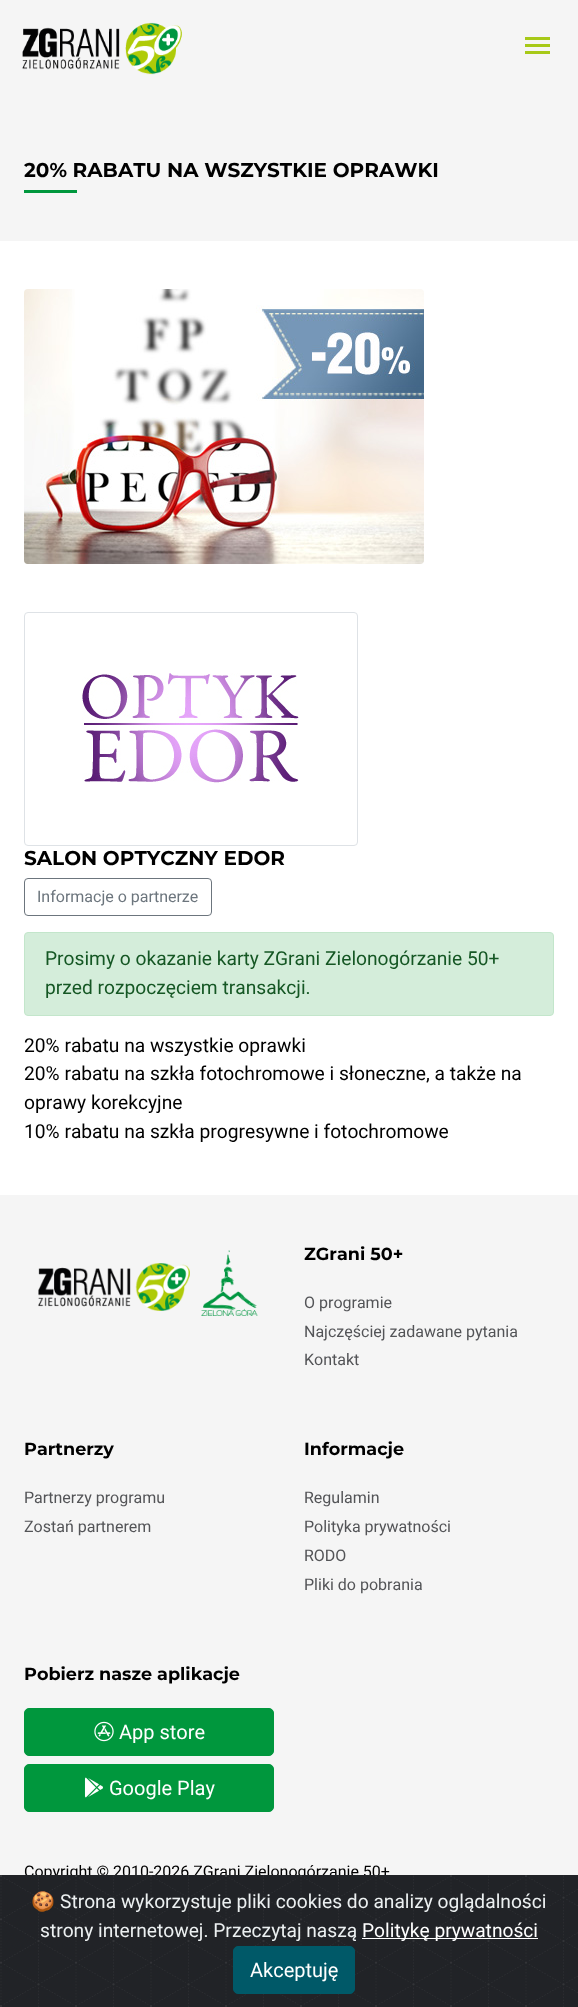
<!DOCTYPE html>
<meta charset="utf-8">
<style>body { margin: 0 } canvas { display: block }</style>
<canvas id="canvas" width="578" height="2007"></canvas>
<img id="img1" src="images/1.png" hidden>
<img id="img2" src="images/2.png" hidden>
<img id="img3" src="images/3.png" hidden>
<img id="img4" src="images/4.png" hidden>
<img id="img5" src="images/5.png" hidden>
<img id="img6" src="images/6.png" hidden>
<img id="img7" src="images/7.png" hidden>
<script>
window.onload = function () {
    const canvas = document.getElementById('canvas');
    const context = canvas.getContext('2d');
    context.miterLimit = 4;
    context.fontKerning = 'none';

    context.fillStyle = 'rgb(255, 255, 255)';
    context.fillRect(0, 0, 578, 2007);
    context.fillStyle = 'rgb(245, 245, 245)';
    context.fillRect(0, 0, 578, 241);
    context.drawImage(document.getElementById('img1'), 22, 22, 160, 53);
    context.fillStyle = 'rgb(167, 201, 24)';
    context.fillRect(525, 37, 25, 3);
    context.fillRect(525, 44, 25, 3);
    context.fillRect(525, 51, 25, 3);
    context.fillStyle = 'rgb(0, 151, 61)';
    context.fillRect(24, 190, 53, 3);
    context.drawImage(document.getElementById('img2'), 24, 289, 400, 275);
    context.beginPath();
    context.roundRect(24.5, 612.5, 333, 233, 3.5);
    context.strokeStyle = 'rgb(222, 226, 230)';
    context.stroke();
    context.drawImage(document.getElementById('img3'), 82, 673, 217, 110);
    context.beginPath();
    context.roundRect(24.5, 878.5, 187, 37, 3.5);
    context.strokeStyle = 'rgb(108, 117, 125)';
    context.stroke();
    context.fillStyle = 'rgb(212, 237, 218)';
    context.beginPath();
    context.roundRect(24.5, 932.5, 529, 83, 3.5);
    context.fill();
    context.strokeStyle = 'rgb(195, 230, 203)';
    context.stroke();
    context.fillStyle = 'rgb(245, 245, 245)';
    context.fillRect(0, 1195, 578, 680);
    context.drawImage(document.getElementById('img4'), 38, 1250, 220, 66);
    context.fillStyle = 'rgb(0, 151, 61)';
    context.beginPath();
    context.roundRect(24.5, 1708.5, 249, 47, 4.5);
    context.fill();
    context.strokeStyle = 'rgb(0, 151, 61)';
    context.stroke();
    context.drawImage(document.getElementById('img5'), 94, 1721, 20, 21);
    context.beginPath();
    context.roundRect(24.5, 1764.5, 249, 47, 4.5);
    context.fill();
    context.stroke();
    context.drawImage(document.getElementById('img6'), 84, 1777, 19, 21);
    context.font = 'bold 20px Montserrat';
    context.fillStyle = 'rgb(0, 0, 0)';
    context.fillText('20% RABATU NA WSZYSTKIE OPRAWKI', 24, 177);
    context.fillText('SALON OPTYCZNY EDOR', 24, 865);
    context.font = '16px Roboto';
    context.fillStyle = 'rgb(108, 117, 125)';
    context.fillText('Informacje o partnerze', 37, 902);
    context.font = '19.2px Roboto';
    context.fillStyle = 'rgb(21, 87, 36)';
    context.fillText('Prosimy o okazanie karty ZGrani Zielonogórzanie 50+', 45, 965);
    context.fillText('przed rozpoczęciem transakcji.', 45, 994);
    context.fillStyle = 'rgb(0, 0, 0)';
    context.fillText('20% rabatu na wszystkie oprawki', 24, 1052);
    context.fillText('20% rabatu na szkła fotochromowe i słoneczne, a także na', 24, 1080);
    context.fillText('oprawy korekcyjne', 24, 1109);
    context.fillText('10% rabatu na szkła progresywne i fotochromowe', 24, 1138);
    context.font = 'bold 17.6px Montserrat';
    context.fillText('ZGrani 50+', 304, 1260);
    context.font = '16px Roboto';
    context.fillStyle = 'rgb(83, 84, 87)';
    context.fillText('O programie', 304, 1308);
    context.fillText('Najczęściej zadawane pytania', 304, 1337);
    context.fillText('Kontakt', 304, 1365);
    context.font = 'bold 17.6px Montserrat';
    context.fillStyle = 'rgb(0, 0, 0)';
    context.fillText('Partnerzy', 24, 1455);
    context.font = '16px Roboto';
    context.fillStyle = 'rgb(83, 84, 87)';
    context.fillText('Partnerzy programu', 24, 1503);
    context.fillText('Zostań partnerem', 24, 1532);
    context.font = 'bold 17.6px Montserrat';
    context.fillStyle = 'rgb(0, 0, 0)';
    context.fillText('Informacje', 304, 1455);
    context.font = '16px Roboto';
    context.fillStyle = 'rgb(83, 84, 87)';
    context.fillText('Regulamin', 304, 1503);
    context.fillText('Polityka prywatności', 304, 1532);
    context.fillText('RODO', 304, 1561);
    context.fillText('Pliki do pobrania', 304, 1590);
    context.font = 'bold 17.6px Montserrat';
    context.fillStyle = 'rgb(0, 0, 0)';
    context.fillText('Pobierz nasze aplikacje', 24, 1680);
    context.font = '20px Roboto';
    context.fillStyle = 'rgb(255, 255, 255)';
    context.fillText('App store', 119, 1739);
    context.fillText('Google Play', 109, 1795);
    context.font = '16px Roboto';
    context.fillStyle = 'rgb(0, 0, 0)';
    context.fillText('Copyright © 2010-2026 ZGrani Zielonogórzanie 50+', 24, 1877);
    context.drawImage(document.getElementById('img7'), 0, 1875, 578, 132);
    context.font = '19.2px Noto Color Emoji';
    context.fillStyle = 'rgb(236, 240, 241)';
    context.fillText('🍪', 31, 1908);
    context.font = '19.2px Roboto';
    context.fillText('Strona wykorzystuje pliki cookies do analizy oglądalności', 60, 1908);
    context.fillText('strony internetowej. Przeczytaj naszą', 40, 1937);
    context.fillStyle = 'rgb(255, 255, 255)';
    context.fillRect(362, 1938, 176, 1);
    context.fillText('Politykę prywatności', 362, 1937);
    context.fillStyle = 'rgb(0, 89, 104)';
    context.beginPath();
    context.roundRect(233.5, 1946.5, 121, 47, 4.5);
    context.fill();
    context.strokeStyle = 'rgb(0, 89, 104)';
    context.stroke();
    context.font = '20px Roboto';
    context.fillStyle = 'rgb(255, 255, 255)';
    context.fillText('Akceptuję', 250, 1977);
};
</script>
